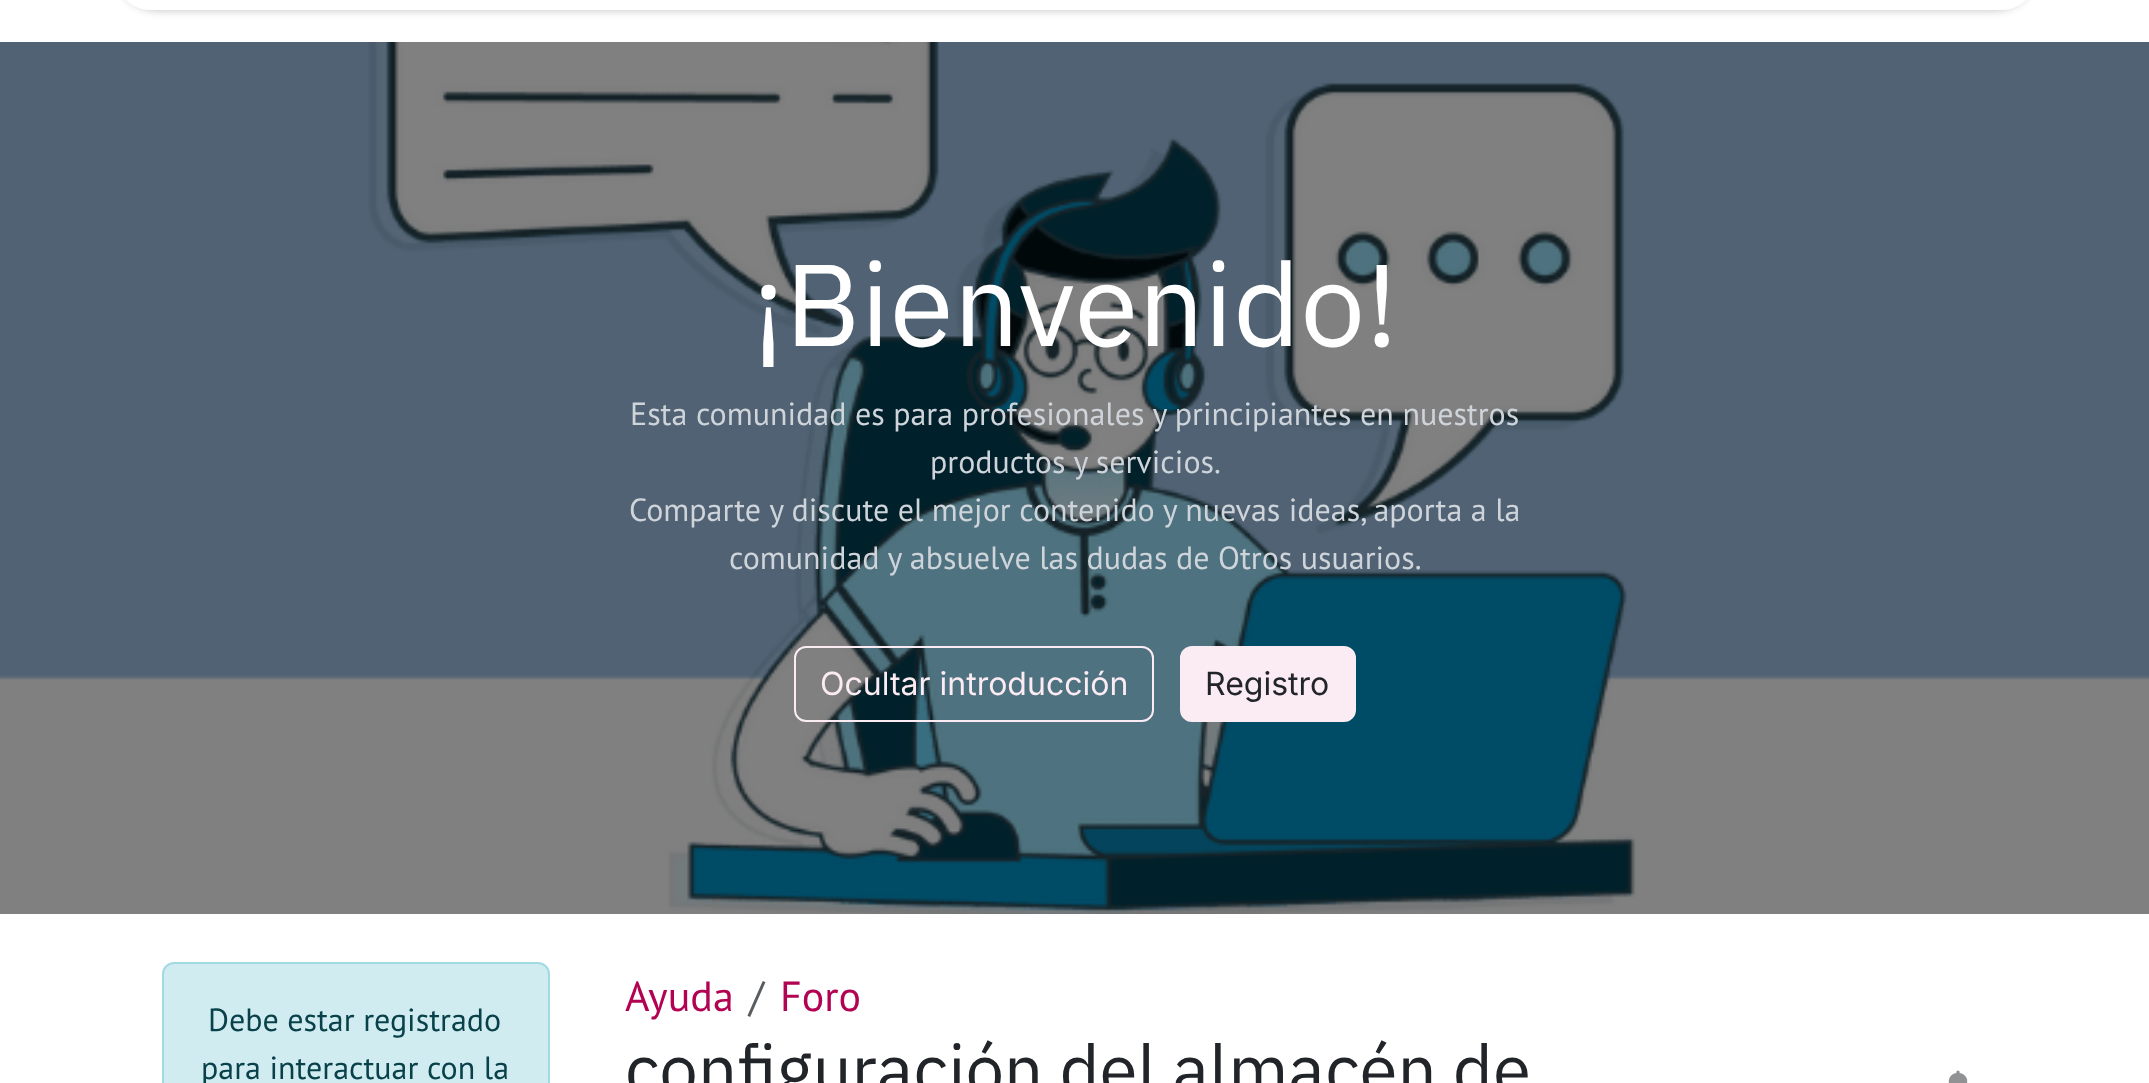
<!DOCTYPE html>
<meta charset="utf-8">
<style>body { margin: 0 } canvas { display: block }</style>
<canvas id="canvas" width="2149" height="1083"></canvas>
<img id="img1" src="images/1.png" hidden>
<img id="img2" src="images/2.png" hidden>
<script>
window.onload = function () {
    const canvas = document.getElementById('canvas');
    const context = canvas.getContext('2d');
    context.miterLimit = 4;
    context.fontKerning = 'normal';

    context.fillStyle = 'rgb(255, 255, 255)';
    context.fillRect(0, 0, 2149, 1083);
    context.fillStyle = 'rgba(0, 0, 0, 0.25)';
    context.filter = 'blur(5px)';
    context.beginPath();
    context.roundRect(116, -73, 1920, 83, 58);
    context.fill();
    context.filter = 'none';
    context.fillStyle = 'rgb(255, 255, 255)';
    context.beginPath();
    context.roundRect(116, -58, 1920, 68, 58);
    context.fill();
    context.drawImage(document.getElementById('img1'), 0, 42, 2149, 872);
    context.beginPath();
    context.roundRect(795, 647, 358, 74, 11);
    context.strokeStyle = 'rgb(251, 235, 242)';
    context.lineWidth = 2;
    context.stroke();
    context.fillStyle = 'rgb(251, 235, 242)';
    context.beginPath();
    context.roundRect(1181, 647, 174, 74, 11);
    context.fill();
    context.stroke();
    context.fillStyle = 'rgb(209, 236, 241)';
    context.beginPath();
    context.roundRect(163, 963, 386, 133, 11);
    context.fill();
    context.strokeStyle = 'rgb(162, 218, 227)';
    context.stroke();
    context.drawImage(document.getElementById('img2'), 1948, 1070, 20, 13);
    context.font = '116px IBM Plex Sans';
    context.fillStyle = 'rgb(255, 255, 255)';
    context.fillText('¡Bienvenido!', 752, 346);
    context.font = '32px PT Sans';
    context.fillStyle = 'rgb(206, 212, 218)';
    context.fillText('Esta comunidad es para profesionales y principiantes en nuestros', 630, 425);
    context.fillText('productos y servicios.', 930, 473);
    context.fillText('Comparte y discute el mejor contenido y nuevas ideas, aporta a la', 629, 521);
    context.fillText('comunidad y absuelve las dudas de Otros usuarios.', 729, 569);
    context.font = '32px Inter';
    context.fillStyle = 'rgb(251, 235, 242)';
    context.fillText('Ocultar introducción', 820, 695);
    context.fillStyle = 'rgb(33, 37, 41)';
    context.fillText('Registro', 1205, 695);
    context.font = '32px PT Sans';
    context.fillStyle = 'rgb(9, 65, 74)';
    context.fillText('Debe estar registrado', 208, 1031);
    context.fillText('para interactuar con la', 201, 1079);
    context.font = '42px PT Sans';
    context.fillStyle = 'rgb(178, 3, 82)';
    context.fillText('Ayuda', 625, 1011);
    context.fillStyle = 'rgb(89, 92, 95)';
    context.fillText('/', 749, 1011);
    context.fillStyle = 'rgb(178, 3, 82)';
    context.fillText('Foro', 780, 1011);
    context.font = '69px IBM Plex Sans';
    context.fillStyle = 'rgb(33, 37, 41)';
    context.fillText('configuración del almacén de', 625, 1094);
};
</script>
